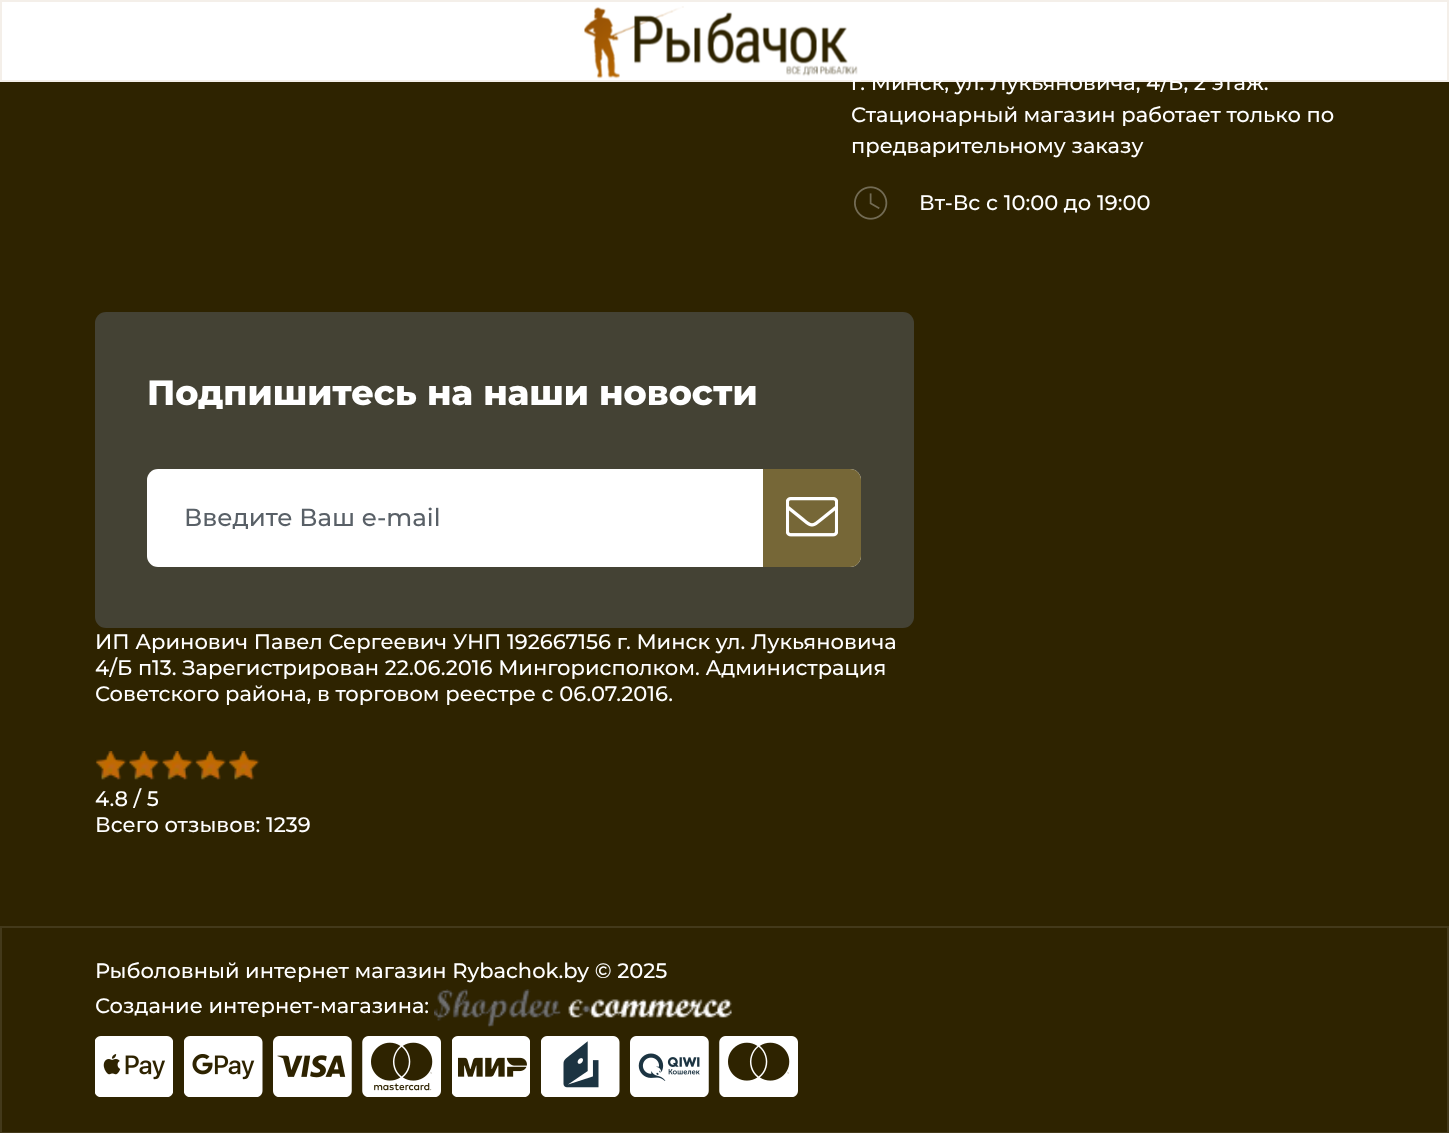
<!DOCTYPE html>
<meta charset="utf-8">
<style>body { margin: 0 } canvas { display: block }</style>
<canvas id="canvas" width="1449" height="1133"></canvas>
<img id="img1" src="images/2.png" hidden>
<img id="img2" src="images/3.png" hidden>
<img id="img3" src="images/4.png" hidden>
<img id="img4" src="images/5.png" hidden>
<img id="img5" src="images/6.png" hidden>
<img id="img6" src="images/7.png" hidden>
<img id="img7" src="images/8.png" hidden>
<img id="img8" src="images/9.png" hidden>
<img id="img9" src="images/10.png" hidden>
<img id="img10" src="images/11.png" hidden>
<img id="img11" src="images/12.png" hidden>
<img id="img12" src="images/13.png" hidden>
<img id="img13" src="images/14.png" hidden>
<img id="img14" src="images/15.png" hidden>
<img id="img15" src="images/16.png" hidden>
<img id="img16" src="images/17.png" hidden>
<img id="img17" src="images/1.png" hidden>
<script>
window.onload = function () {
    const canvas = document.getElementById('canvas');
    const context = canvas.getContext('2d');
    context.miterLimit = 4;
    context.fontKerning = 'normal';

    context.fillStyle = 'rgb(46, 35, 0)';
    context.fillRect(0, 0, 1449, 1133);
    context.fillStyle = 'rgb(255, 255, 255)';
    context.beginPath();
    context.rect(1, 1, 1447, 80);
    context.fill();
    context.strokeStyle = 'rgb(244, 239, 233)';
    context.lineWidth = 2;
    context.stroke();
    context.drawImage(document.getElementById('img1'), 854, 186, 34, 34);
    context.fillStyle = 'rgb(68, 66, 52)';
    context.beginPath();
    context.roundRect(95, 312, 819, 316, 11);
    context.fill();
    context.fillStyle = 'rgb(255, 255, 255)';
    context.beginPath();
    context.roundRect(147, 469, 714, 98, 11);
    context.fill();
    context.fillStyle = 'rgb(118, 103, 55)';
    context.beginPath();
    context.roundRect(763, 469, 98, 98, [0, 11, 11, 0]);
    context.fill();
    context.drawImage(document.getElementById('img2'), 786, 497, 52, 40);
    context.drawImage(document.getElementById('img3'), 95, 751, 32, 29);
    context.drawImage(document.getElementById('img4'), 129, 751, 31, 29);
    context.drawImage(document.getElementById('img5'), 162, 751, 31, 29);
    context.drawImage(document.getElementById('img6'), 195, 751, 31, 29);
    context.drawImage(document.getElementById('img7'), 228, 751, 32, 29);
    context.strokeStyle = 'rgb(67, 57, 26)';
    context.strokeRect(1, 927, 1447, 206);
    context.drawImage(document.getElementById('img8'), 434, 989, 298, 39);
    context.drawImage(document.getElementById('img9'), 95, 1036, 78, 61);
    context.drawImage(document.getElementById('img10'), 184, 1036, 79, 61);
    context.drawImage(document.getElementById('img11'), 273, 1036, 79, 61);
    context.drawImage(document.getElementById('img12'), 362, 1036, 79, 61);
    context.drawImage(document.getElementById('img13'), 452, 1036, 78, 61);
    context.drawImage(document.getElementById('img14'), 541, 1036, 79, 61);
    context.drawImage(document.getElementById('img15'), 630, 1036, 79, 61);
    context.drawImage(document.getElementById('img16'), 719, 1036, 79, 61);
    context.font = '500 21px Montserrat';
    context.fillStyle = 'rgb(255, 255, 255)';
    context.fillText('г. Минск, ул. Лукьяновича, 4/Б, 2 этаж.', 851, 90);
    context.drawImage(document.getElementById('img17'), 584, 6, 274, 73);
    context.fillText('Стационарный магазин работает только по', 851, 122);
    context.fillText('предварительному заказу', 851, 153);
    context.fillText('Вт-Вс с 10:00 до 19:00', 919, 210);
    context.font = '800 35px Montserrat';
    context.fillText('Подпишитесь на наши новости', 147, 405);
    context.font = '500 24.5px Montserrat';
    context.fillStyle = 'rgb(89, 96, 103)';
    context.fillText('Введите Ваш e-mail', 184, 526);
    context.font = '500 21px Montserrat';
    context.fillStyle = 'rgb(255, 255, 255)';
    context.fillText('ИП Аринович Павел Сергеевич УНП 192667156 г. Минск ул. Лукьяновича', 95, 649);
    context.fillText('4/Б п13. Зарегистрирован 22.06.2016 Мингорисполком. Администрация', 95, 675);
    context.fillText('Советского района, в торговом реестре с 06.07.2016.', 95, 701);
    context.fillText('4.8 / 5', 95, 806);
    context.fillText('Всего отзывов: 1239', 95, 832);
    context.fillText('Рыболовный интернет магазин Rybachok.by © 2025', 95, 978);
    context.fillText('Создание интернет-магазина:', 95, 1013);
};
</script>
